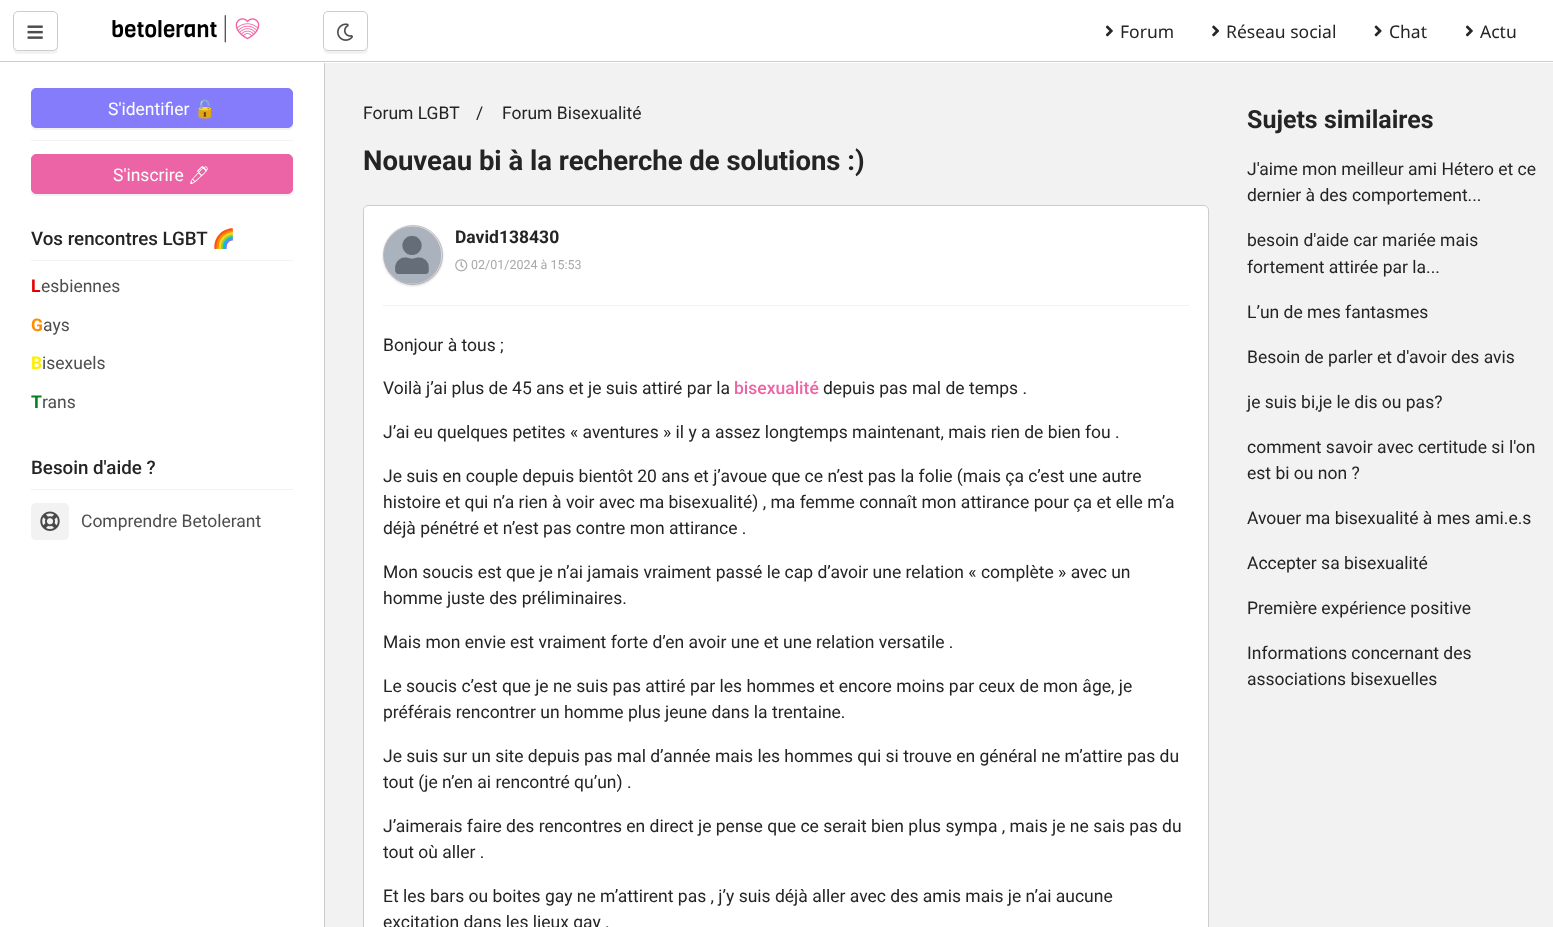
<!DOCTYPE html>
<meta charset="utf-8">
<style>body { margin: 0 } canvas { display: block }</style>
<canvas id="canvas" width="1553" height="927"></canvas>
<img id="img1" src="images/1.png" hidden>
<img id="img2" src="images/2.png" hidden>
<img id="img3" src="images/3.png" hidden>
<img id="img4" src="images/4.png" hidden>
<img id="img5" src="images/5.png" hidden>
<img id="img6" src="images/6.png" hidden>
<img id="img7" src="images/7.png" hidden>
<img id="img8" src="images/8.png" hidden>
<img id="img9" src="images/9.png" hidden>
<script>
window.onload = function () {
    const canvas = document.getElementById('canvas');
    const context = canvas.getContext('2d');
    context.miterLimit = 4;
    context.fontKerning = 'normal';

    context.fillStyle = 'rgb(242, 242, 242)';
    context.fillRect(0, 0, 1553, 927);
    context.fillStyle = 'rgb(255, 255, 255)';
    context.fillRect(0, 0, 1553, 63);
    context.fillStyle = 'rgb(204, 204, 204)';
    context.fillRect(0, 61, 1553, 1);
    context.fillStyle = 'rgb(242, 242, 242)';
    context.beginPath();
    context.moveTo(13, 48);
    context.bezierCurveTo(13, 55, 19, 54, 24, 54);
    context.lineTo(41, 54);
    context.bezierCurveTo(62, 54, 58, 55, 58, 34);
    context.lineTo(58, 24);
    context.bezierCurveTo(58, 22, 58, 19, 58, 17);
    context.lineTo(58, 46);
    context.bezierCurveTo(58, 49, 55, 51, 52, 51);
    context.lineTo(18, 51);
    context.bezierCurveTo(16, 51, 14, 50, 13, 48);
    context.closePath();
    context.fill();
    context.fillStyle = 'rgb(255, 255, 255)';
    context.beginPath();
    context.roundRect(13, 11, 45, 40, 5);
    context.fill();
    context.beginPath();
    context.roundRect(13.5, 11.5, 44, 39, 4.5);
    context.strokeStyle = 'rgba(0, 0, 0, 0.2)';
    context.stroke();
    context.drawImage(document.getElementById('img1'), 27, 25, 16, 14);
    context.drawImage(document.getElementById('img2'), 112, 15, 148, 28);
    context.fillStyle = 'rgb(242, 242, 242)';
    context.beginPath();
    context.moveTo(323, 48);
    context.bezierCurveTo(323, 55, 329, 54, 334, 54);
    context.lineTo(351, 54);
    context.bezierCurveTo(372, 54, 368, 55, 368, 34);
    context.lineTo(368, 24);
    context.bezierCurveTo(368, 22, 368, 19, 368, 17);
    context.lineTo(368, 46);
    context.bezierCurveTo(368, 49, 365, 51, 362, 51);
    context.lineTo(328, 51);
    context.bezierCurveTo(326, 51, 324, 50, 323, 48);
    context.closePath();
    context.fill();
    context.fillStyle = 'rgb(255, 255, 255)';
    context.beginPath();
    context.roundRect(323, 11, 45, 40, 5);
    context.fill();
    context.beginPath();
    context.roundRect(323.5, 11.5, 44, 39, 4.5);
    context.stroke();
    context.drawImage(document.getElementById('img3'), 337, 23, 16, 18);
    context.drawImage(document.getElementById('img4'), 1105, 25, 8, 12);
    context.drawImage(document.getElementById('img5'), 1212, 25, 8, 12);
    context.drawImage(document.getElementById('img6'), 1374, 25, 8, 12);
    context.drawImage(document.getElementById('img4'), 1465, 25, 8, 12);
    context.fillRect(0, 63, 324, 864);
    context.fillStyle = 'rgb(204, 204, 204)';
    context.fillRect(324, 63, 1, 864);
    context.fillStyle = 'rgb(242, 242, 242)';
    context.beginPath();
    context.moveTo(31, 93);
    context.lineTo(31, 125);
    context.bezierCurveTo(31, 128, 33, 130, 36, 130);
    context.lineTo(288, 130);
    context.bezierCurveTo(291, 130, 293, 128, 293, 125);
    context.lineTo(293, 95);
    context.lineTo(292, 93);
    context.lineTo(292, 122);
    context.bezierCurveTo(292, 125, 290, 128, 288, 128);
    context.lineTo(36, 128);
    context.bezierCurveTo(33, 128, 31, 125, 31, 122);
    context.closePath();
    context.fill();
    context.fillStyle = 'rgb(133, 124, 252)';
    context.beginPath();
    context.roundRect(31.5, 88.5, 261, 39, 4.5);
    context.fill();
    context.strokeStyle = 'rgb(133, 124, 252)';
    context.stroke();
    context.fillStyle = 'rgb(242, 242, 242)';
    context.fillRect(31, 140, 262, 1);
    context.beginPath();
    context.moveTo(31, 159);
    context.lineTo(31, 191);
    context.bezierCurveTo(31, 194, 33, 196, 36, 196);
    context.lineTo(288, 196);
    context.bezierCurveTo(291, 196, 293, 194, 293, 191);
    context.lineTo(293, 161);
    context.lineTo(292, 159);
    context.lineTo(292, 189);
    context.bezierCurveTo(292, 192, 290, 194, 288, 194);
    context.lineTo(36, 194);
    context.bezierCurveTo(33, 194, 31, 192, 31, 189);
    context.closePath();
    context.fill();
    context.fillStyle = 'rgb(237, 100, 166)';
    context.beginPath();
    context.roundRect(31.5, 154.5, 261, 39, 4.5);
    context.fill();
    context.strokeStyle = 'rgb(237, 100, 166)';
    context.stroke();
    context.fillStyle = 'rgb(242, 242, 242)';
    context.fillRect(31, 260, 262, 1);
    context.fillRect(31, 489, 262, 1);
    context.beginPath();
    context.roundRect(31, 503, 38, 37, 5);
    context.fill();
    context.drawImage(document.getElementById('img7'), 40, 511, 20, 20);
    context.fillStyle = 'rgb(255, 255, 255)';
    context.beginPath();
    context.moveTo(368, 205);
    context.lineTo(1204, 205);
    context.bezierCurveTo(1207, 205, 1209, 207, 1209, 210);
    context.lineTo(1209, 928);
    context.lineTo(363, 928);
    context.lineTo(363, 210);
    context.bezierCurveTo(363, 207, 365, 205, 368, 205);
    context.closePath();
    context.fill();
    context.beginPath();
    context.roundRect(363.5, 205.5, 845, 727, 4.5);
    context.strokeStyle = 'rgba(0, 0, 0, 0.2)';
    context.stroke();
    context.fillStyle = 'rgba(0, 0, 0, 0.15)';
    context.filter = 'blur(1px)';
    context.beginPath();
    context.roundRect(383, 226, 60, 60, 30);
    context.fill();
    context.filter = 'none';
    context.beginPath();
    context.arc(413, 255, 29.5, 0, 2 * Math.PI);
    context.stroke();
    context.drawImage(document.getElementById('img8'), 384, 226, 57, 58);
    context.drawImage(document.getElementById('img9'), 455, 259, 13, 13);
    context.fillStyle = 'rgb(242, 242, 242)';
    context.fillRect(383, 305, 806, 1);
    context.font = '17.5px Noto Sans';
    context.fillStyle = 'rgb(36, 36, 36)';
    context.fillText('Forum', 1120, 38);
    context.fillText('Réseau social', 1226, 38);
    context.fillText('Chat', 1389, 38);
    context.fillText('Actu', 1480, 38);
    context.font = '17.5px Roboto';
    context.fillStyle = 'rgb(255, 255, 255)';
    context.fillText('S\'identifier', 108, 115);
    context.font = '17.5px Noto Color Emoji';
    context.fillText('🔓', 194, 115);
    context.font = '17.5px Roboto';
    context.fillText('S\'inscrire', 113, 181);
    context.font = '17.5px Noto Emoji';
    context.fillText('🖊', 188, 181);
    context.font = '500 18.75px Roboto';
    context.fillStyle = 'rgb(36, 36, 36)';
    context.fillText('Vos rencontres LGBT', 31, 245);
    context.font = '18.75px Noto Color Emoji';
    context.fillText('🌈', 212, 245);
    context.font = 'bold 17.5px Roboto';
    context.fillStyle = 'rgb(229, 0, 0)';
    context.fillText('L', 31, 292);
    context.font = '17.5px Roboto';
    context.fillStyle = 'rgb(77, 77, 77)';
    context.fillText('esbiennes', 41, 292);
    context.font = 'bold 17.5px Roboto';
    context.fillStyle = 'rgb(255, 141, 0)';
    context.fillText('G', 31, 331);
    context.font = '17.5px Roboto';
    context.fillStyle = 'rgb(77, 77, 77)';
    context.fillText('ays', 43, 331);
    context.font = 'bold 17.5px Roboto';
    context.fillStyle = 'rgb(255, 238, 0)';
    context.fillText('B', 31, 369);
    context.font = '17.5px Roboto';
    context.fillStyle = 'rgb(77, 77, 77)';
    context.fillText('isexuels', 42, 369);
    context.font = 'bold 17.5px Roboto';
    context.fillStyle = 'rgb(2, 129, 33)';
    context.fillText('T', 31, 408);
    context.font = '17.5px Roboto';
    context.fillStyle = 'rgb(77, 77, 77)';
    context.fillText('rans', 42, 408);
    context.font = '500 18.75px Roboto';
    context.fillStyle = 'rgb(36, 36, 36)';
    context.fillText('Besoin d\'aide ?', 31, 474);
    context.font = '17.5px Roboto';
    context.fillStyle = 'rgb(77, 77, 77)';
    context.fillText('Comprendre Betolerant', 81, 527);
    context.fillStyle = 'rgb(36, 36, 36)';
    context.fillText('Forum LGBT', 363, 119);
    context.fillText('/', 476, 119);
    context.fillText('Forum Bisexualité', 502, 119);
    context.font = 'bold 27.5px Roboto';
    context.fillText('Nouveau bi à la recherche de solutions :)', 363, 170);
    context.font = 'bold 17.5px Roboto';
    context.fillText('David138430', 455, 243);
    context.font = '12.5px Roboto';
    context.fillStyle = 'rgb(169, 169, 169)';
    context.fillText('02/01/2024 à 15:53', 471, 269);
    context.font = '17.5px Roboto';
    context.fillStyle = 'rgb(36, 36, 36)';
    context.fillText('Bonjour à tous ;', 383, 351);
    context.fillText('Voilà j’ai plus de 45 ans et je suis attiré par la', 383, 394);
    context.font = '500 17.5px Roboto';
    context.fillStyle = 'rgb(237, 100, 166)';
    context.fillText('bisexualité', 734, 394);
    context.font = '17.5px Roboto';
    context.fillStyle = 'rgb(36, 36, 36)';
    context.fillText('depuis pas mal de temps .', 823, 394);
    context.fillText('J’ai eu quelques petites « aventures » il y a assez longtemps maintenant, mais rien de bien fou .', 383, 438);
    context.fillText('Je suis en couple depuis bientôt 20 ans et j’avoue que ce n’est pas la folie (mais ça c’est une autre', 383, 482);
    context.fillText('histoire et qui n’a rien à voir avec ma bisexualité) , ma femme connaît mon attirance pour ça et elle m’a', 383, 508);
    context.fillText('déjà pénétré et n’est pas contre mon attirance .', 383, 534);
    context.fillText('Mon soucis est que je n’ai jamais vraiment passé le cap d’avoir une relation « complète » avec un', 383, 578);
    context.fillText('homme juste des préliminaires.', 383, 604);
    context.fillText('Mais mon envie est vraiment forte d’en avoir une et une relation versatile .', 383, 648);
    context.fillText('Le soucis c’est que je ne suis pas attiré par les hommes et encore moins par ceux de mon âge, je', 383, 692);
    context.fillText('préférais rencontrer un homme plus jeune dans la trentaine.', 383, 718);
    context.fillText('Je suis sur un site depuis pas mal d’année mais les hommes qui si trouve en général ne m’attire pas du', 383, 762);
    context.fillText('tout (je n’en ai rencontré qu’un) .', 383, 788);
    context.fillText('J’aimerais faire des rencontres en direct je pense que ce serait bien plus sympa , mais je ne sais pas du', 383, 832);
    context.fillText('tout où aller .', 383, 858);
    context.fillText('Et les bars ou boites gay ne m’attirent pas , j’y suis déjà aller avec des amis mais je n’ai aucune', 383, 902);
    context.fillText('excitation dans les lieux gay .', 383, 928);
    context.font = 'bold 25px Roboto';
    context.fillText('Sujets similaires', 1247, 128);
    context.font = '17.5px Roboto';
    context.fillText('J\'aime mon meilleur ami Hétero et ce', 1247, 175);
    context.fillText('dernier à des comportement...', 1247, 201);
    context.fillText('besoin d\'aide car mariée mais', 1247, 246);
    context.fillText('fortement attirée par la...', 1247, 273);
    context.fillText('L’un de mes fantasmes', 1247, 318);
    context.fillText('Besoin de parler et d\'avoir des avis', 1247, 363);
    context.fillText('je suis bi,je le dis ou pas?', 1247, 408);
    context.fillText('comment savoir avec certitude si l\'on', 1247, 453);
    context.fillText('est bi ou non ?', 1247, 479);
    context.fillText('Avouer ma bisexualité à mes ami.e.s', 1247, 524);
    context.fillText('Accepter sa bisexualité', 1247, 569);
    context.fillText('Première expérience positive', 1247, 614);
    context.fillText('Informations concernant des', 1247, 659);
    context.fillText('associations bisexuelles', 1247, 685);
};
</script>
